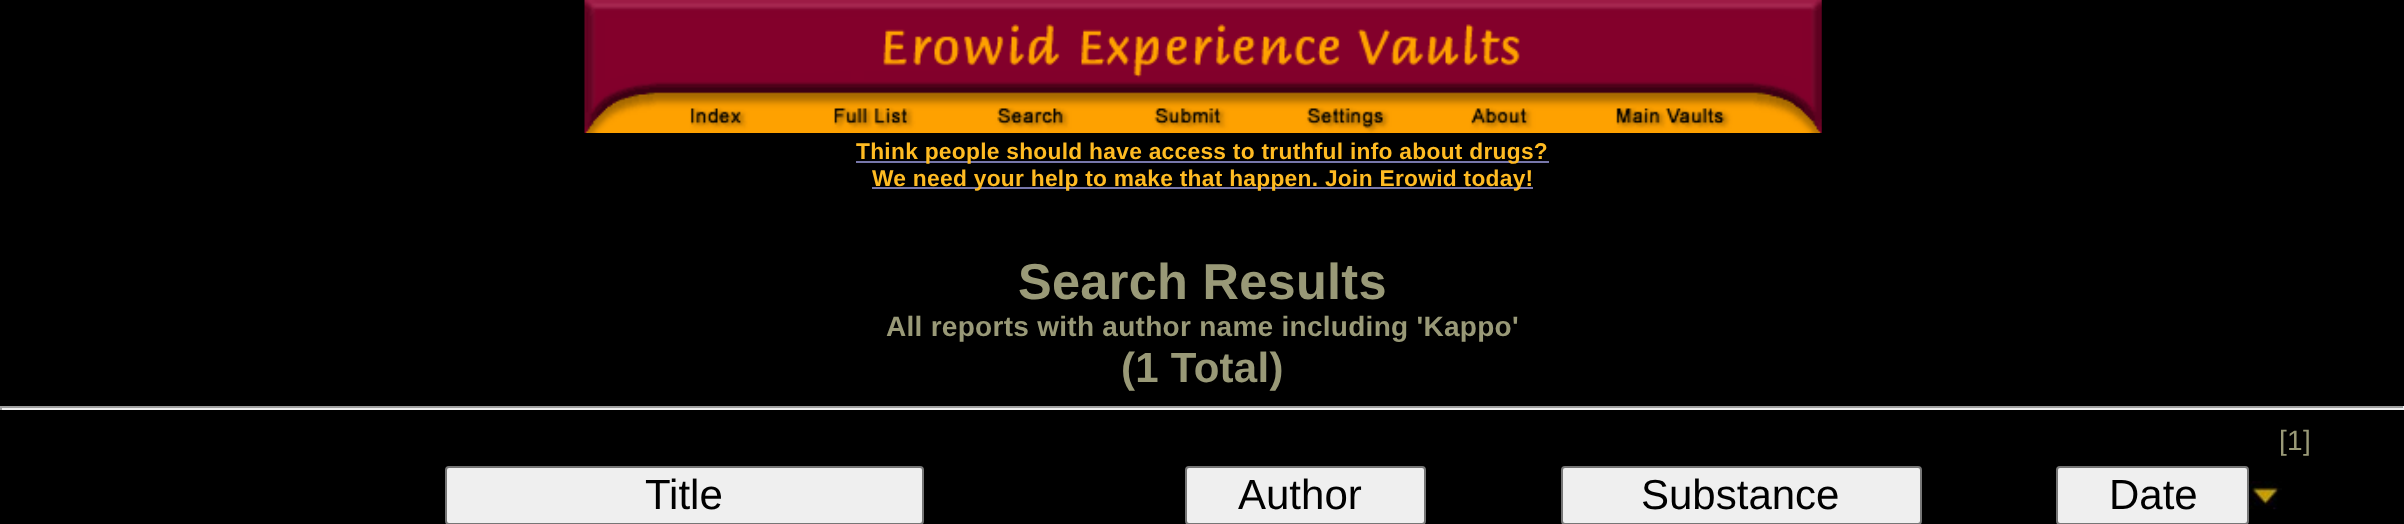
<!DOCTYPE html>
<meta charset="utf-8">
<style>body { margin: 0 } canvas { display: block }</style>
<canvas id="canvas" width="2404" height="524"></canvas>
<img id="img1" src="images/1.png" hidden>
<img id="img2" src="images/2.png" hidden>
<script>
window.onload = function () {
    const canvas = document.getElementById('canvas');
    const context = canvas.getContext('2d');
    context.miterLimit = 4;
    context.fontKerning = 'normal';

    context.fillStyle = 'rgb(0, 0, 0)';
    context.fillRect(0, 0, 2404, 524);
    context.drawImage(document.getElementById('img1'), 584, 0, 1238, 133);
    context.fillStyle = 'rgb(119, 119, 170)';
    context.fillRect(856, 161, 693, 2);
    context.fillRect(872, 187, 661, 2);
    context.fillStyle = 'rgb(159, 159, 159)';
    context.fillRect(0, 406, 2404, 2);
    context.fillStyle = 'rgb(238, 238, 238)';
    context.fillRect(2403, 406, 1, 4);
    context.fillRect(0, 408, 2404, 2);
    context.fillStyle = 'rgb(159, 159, 159)';
    context.fillRect(0, 406, 2, 4);
    context.fillStyle = 'rgb(239, 239, 239)';
    context.beginPath();
    context.roundRect(446, 467, 477, 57, 3);
    context.fill();
    context.strokeStyle = 'rgb(118, 118, 118)';
    context.lineWidth = 2;
    context.stroke();
    context.beginPath();
    context.roundRect(1186, 467, 239, 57, 3);
    context.fill();
    context.stroke();
    context.beginPath();
    context.roundRect(1562, 467, 359, 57, 3);
    context.fill();
    context.stroke();
    context.beginPath();
    context.roundRect(2057, 467, 191, 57, 3);
    context.fill();
    context.stroke();
    context.drawImage(document.getElementById('img2'), 2249, 481, 33, 29);
    context.letterSpacing = '0.28px';
    context.font = 'bold 22.75px Liberation Sans';
    context.fillStyle = 'rgb(255, 187, 34)';
    context.fillText('Think people should have access to truthful info about drugs?', 856, 159);
    context.fillText('We need your help to make that happen. Join Erowid today!', 872, 186);
    context.font = 'bold 50.5px Liberation Sans';
    context.fillStyle = 'rgb(153, 153, 119)';
    context.fillText('Search Results', 1018, 299);
    context.font = 'bold 28px Liberation Sans';
    context.fillText('All reports with author name including \'Kappo\'', 886, 336);
    context.font = 'bold 42px Liberation Sans';
    context.fillText('(1 Total)', 1121, 382);
    context.font = '28px Liberation Sans';
    context.fillText('[1]', 2279, 450);
    context.letterSpacing = '0px';
    context.font = '42px Liberation Sans';
    context.fillStyle = 'rgb(0, 0, 0)';
    context.fillText('Title', 645, 509);
    context.fillText('Author', 1238, 509);
    context.fillText('Substance', 1641, 509);
    context.fillText('Date', 2109, 509);
};
</script>
